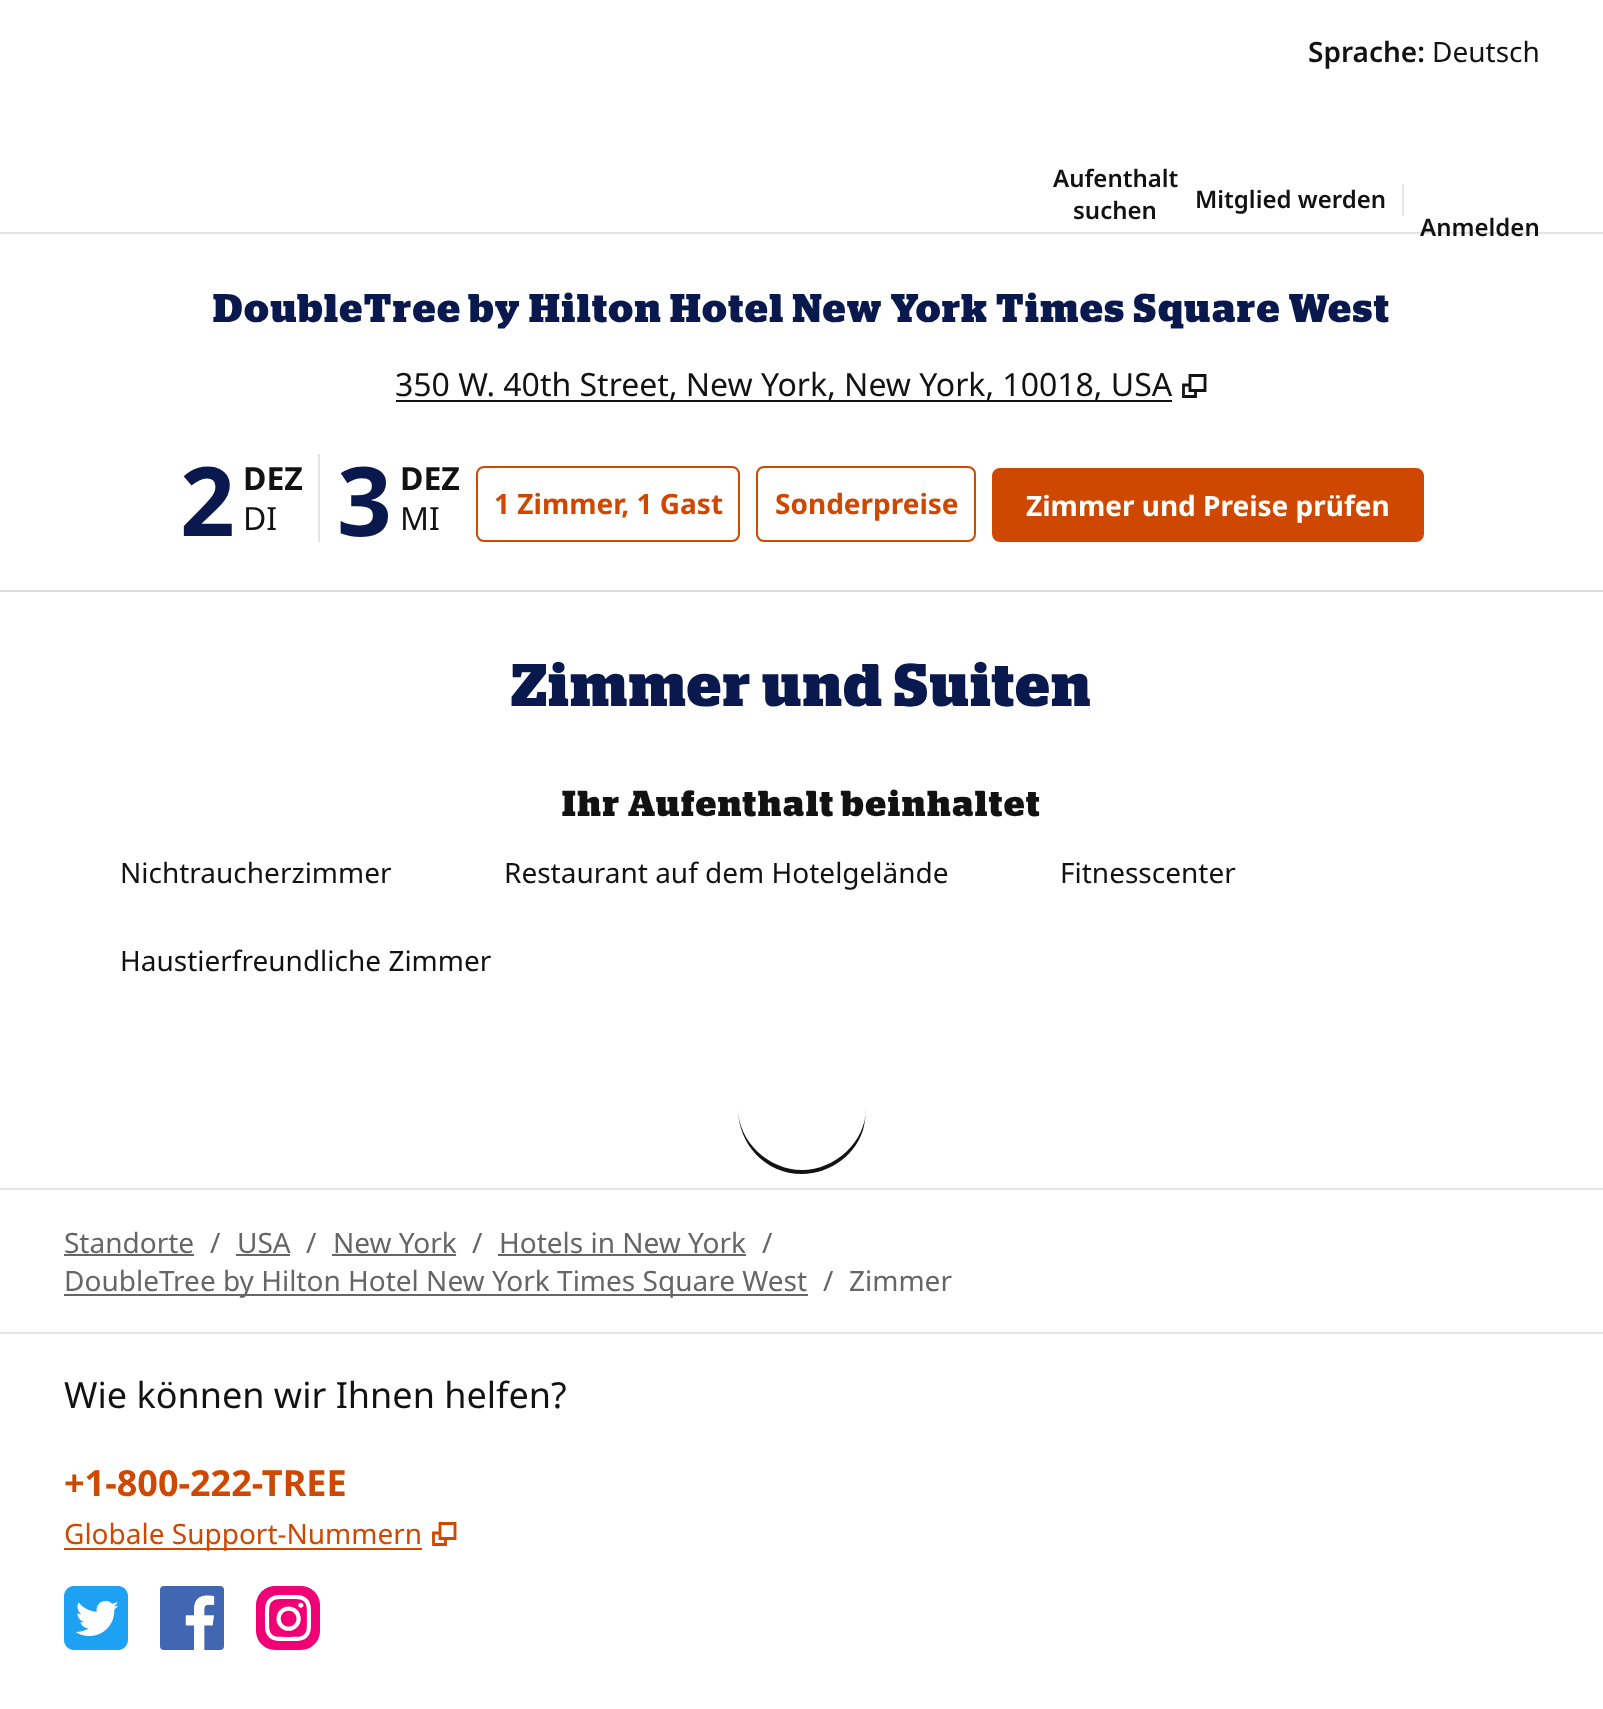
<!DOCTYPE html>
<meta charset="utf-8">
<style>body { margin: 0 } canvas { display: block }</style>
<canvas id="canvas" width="1603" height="1709"></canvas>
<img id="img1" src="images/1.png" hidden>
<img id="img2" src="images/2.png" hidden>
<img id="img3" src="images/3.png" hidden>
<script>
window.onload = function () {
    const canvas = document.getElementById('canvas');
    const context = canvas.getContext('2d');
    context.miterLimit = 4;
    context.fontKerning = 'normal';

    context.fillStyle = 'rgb(255, 255, 255)';
    context.fillRect(0, 0, 1603, 1709);
    context.fillStyle = 'rgb(227, 227, 227)';
    context.fillRect(0, 232, 1603, 2);
    context.fillRect(1402, 184, 2, 32);
    context.fillStyle = 'rgb(220, 220, 220)';
    context.fillRect(0, 590, 1603, 2);
    context.fillStyle = 'rgb(18, 18, 18)';
    context.fillRect(396, 400, 776, 2);
    context.beginPath();
    context.moveTo(1190, 375.5);
    context.lineTo(1205, 375.5);
    context.lineTo(1205, 390.5);
    context.lineTo(1190, 390.5);
    context.closePath();
    context.moveTo(1183.5, 396.5);
    context.lineTo(1183.5, 385);
    context.lineTo(1190, 385);
    context.lineTo(1190, 390.5);
    context.lineTo(1195.5, 390.5);
    context.lineTo(1195.5, 396.5);
    context.closePath();
    context.strokeStyle = 'rgb(18, 18, 18)';
    context.lineWidth = 2.8;
    context.stroke();
    context.fillStyle = 'rgb(227, 227, 227)';
    context.fillRect(318, 454, 2, 88);
    context.beginPath();
    context.roundRect(477, 467, 262, 74, 7);
    context.strokeStyle = 'rgb(207, 72, 2)';
    context.lineWidth = 2;
    context.stroke();
    context.beginPath();
    context.roundRect(757, 467, 218, 74, 7);
    context.stroke();
    context.fillStyle = 'rgb(207, 72, 2)';
    context.beginPath();
    context.roundRect(993, 469, 430, 72, 7);
    context.fill();
    context.stroke();
    context.fillStyle = 'rgb(18, 18, 18)';
    context.beginPath();
    context.moveTo(738, 1108);
    context.bezierCurveTo(738, 1142, 769, 1170, 802, 1170);
    context.bezierCurveTo(835, 1170, 866, 1142, 866, 1108);
    context.bezierCurveTo(866, 1114, 865, 1120, 864, 1126);
    context.bezierCurveTo(858, 1154, 830, 1174, 802, 1174);
    context.bezierCurveTo(765, 1174, 738, 1144, 738, 1108);
    context.closePath();
    context.fill();
    context.fillStyle = 'rgb(227, 227, 227)';
    context.fillRect(0, 1188, 1603, 2);
    context.fillStyle = 'rgb(102, 102, 102)';
    context.fillRect(64, 1254, 130, 2);
    context.fillRect(236, 1254, 54, 2);
    context.fillRect(332, 1254, 124, 2);
    context.fillRect(498, 1254, 248, 2);
    context.fillRect(64, 1294, 744, 2);
    context.fillStyle = 'rgb(227, 227, 227)';
    context.fillRect(0, 1332, 1603, 2);
    context.fillStyle = 'rgb(207, 72, 2)';
    context.fillRect(64, 1548, 358, 2);
    context.beginPath();
    context.moveTo(440, 1523.5);
    context.lineTo(455, 1523.5);
    context.lineTo(455, 1538.5);
    context.lineTo(440, 1538.5);
    context.closePath();
    context.moveTo(433.5, 1544.5);
    context.lineTo(433.5, 1533);
    context.lineTo(440, 1533);
    context.lineTo(440, 1538.5);
    context.lineTo(445.5, 1538.5);
    context.lineTo(445.5, 1544.5);
    context.closePath();
    context.lineWidth = 2.8;
    context.stroke();
    context.drawImage(document.getElementById('img1'), 64, 1586, 64, 64);
    context.drawImage(document.getElementById('img2'), 160, 1586, 64, 64);
    context.drawImage(document.getElementById('img3'), 256, 1586, 64, 64);
    context.font = '600 28px Noto Sans';
    context.fillStyle = 'rgb(18, 18, 18)';
    context.fillText('Sprache:', 1308, 62);
    context.font = '28px Noto Sans';
    context.fillText('Deutsch', 1432, 62);
    context.font = '600 24px Noto Sans';
    context.fillText('Aufenthalt', 1053, 187);
    context.fillText('suchen', 1073, 219);
    context.fillText('Mitglied werden', 1195, 208);
    context.fillText('Anmelden', 1420, 236);
    context.letterSpacing = '2px';
    context.font = 'bold 40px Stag';
    context.fillStyle = 'rgb(9, 25, 78)';
    context.fillText('DoubleTree by Hilton Hotel New York Times Square West', 213, 322);
    context.letterSpacing = '0px';
    context.font = '32px Noto Sans';
    context.fillStyle = 'rgb(18, 18, 18)';
    context.fillText('350 W. 40th Street, New York, New York, 10018, USA', 395, 396);
    context.font = 'bold 96px Noto Sans';
    context.fillStyle = 'rgb(9, 25, 78)';
    context.fillText('2', 180, 536);
    context.font = 'bold 32px Noto Sans';
    context.fillStyle = 'rgb(18, 18, 18)';
    context.fillText('DEZ', 243, 490);
    context.font = '32px Noto Sans';
    context.fillText('DI', 243, 530);
    context.font = 'bold 96px Noto Sans';
    context.fillStyle = 'rgb(9, 25, 78)';
    context.fillText('3', 337, 536);
    context.font = 'bold 32px Noto Sans';
    context.fillStyle = 'rgb(18, 18, 18)';
    context.fillText('DEZ', 400, 490);
    context.font = '32px Noto Sans';
    context.fillText('MI', 400, 530);
    context.font = 'bold 28px Noto Sans';
    context.fillStyle = 'rgb(207, 72, 2)';
    context.fillText('1 Zimmer, 1 Gast', 494, 514);
    context.fillText('Sonderpreise', 775, 514);
    context.fillStyle = 'rgb(255, 255, 255)';
    context.fillText('Zimmer und Preise prüfen', 1026, 516);
    context.letterSpacing = '2px';
    context.font = 'bold 60px Stag';
    context.fillStyle = 'rgb(9, 25, 78)';
    context.fillText('Zimmer und Suiten', 511, 706);
    context.font = 'bold 36px Stag';
    context.fillStyle = 'rgb(18, 18, 18)';
    context.fillText('Ihr Aufenthalt beinhaltet', 562, 816);
    context.letterSpacing = '0px';
    context.font = '28px Noto Sans';
    context.fillText('Nichtraucherzimmer', 120, 883);
    context.fillText('Restaurant auf dem Hotelgelände', 504, 883);
    context.fillText('Fitnesscenter', 1060, 883);
    context.fillText('Haustierfreundliche Zimmer', 120, 971);
    context.fillStyle = 'rgb(102, 102, 102)';
    context.fillText('Standorte', 64, 1253);
    context.fillText('/', 210, 1253);
    context.fillText('USA', 237, 1253);
    context.fillText('/', 306, 1253);
    context.fillText('New York', 333, 1253);
    context.fillText('/', 472, 1253);
    context.fillText('Hotels in New York', 499, 1253);
    context.fillText('/', 762, 1253);
    context.fillText('DoubleTree by Hilton Hotel New York Times Square West', 64, 1291);
    context.fillText('/', 823, 1291);
    context.fillText('Zimmer', 849, 1291);
    context.font = '36px Noto Sans';
    context.fillStyle = 'rgb(18, 18, 18)';
    context.fillText('Wie können wir Ihnen helfen?', 64, 1408);
    context.font = 'bold 36px Noto Sans';
    context.fillStyle = 'rgb(207, 72, 2)';
    context.fillText('+1-800-222-TREE', 64, 1496);
    context.font = '28px Noto Sans';
    context.fillText('Globale Support-Nummern', 64, 1544);
};
</script>
